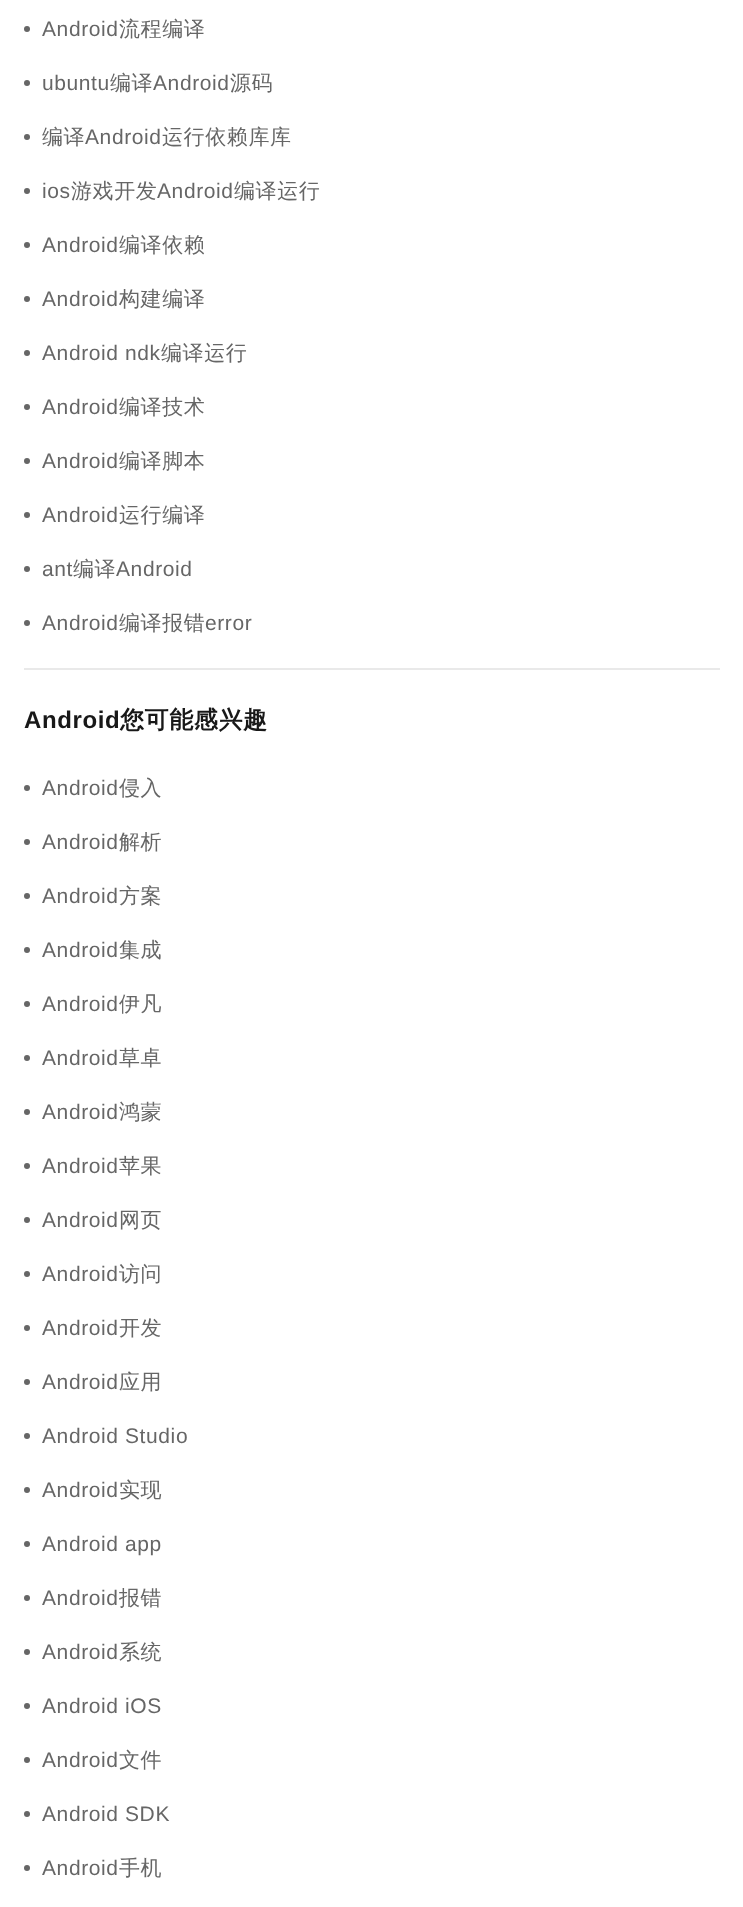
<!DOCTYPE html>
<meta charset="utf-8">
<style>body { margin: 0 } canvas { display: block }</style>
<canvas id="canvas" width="743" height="1907"></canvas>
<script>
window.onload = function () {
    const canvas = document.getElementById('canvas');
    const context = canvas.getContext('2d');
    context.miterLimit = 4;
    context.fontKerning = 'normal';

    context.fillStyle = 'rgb(255, 255, 255)';
    context.fillRect(0, 0, 743, 1907);
    context.fillStyle = 'rgb(102, 102, 102)';
    context.beginPath();
    context.arc(27, 29, 3, 0, 2 * Math.PI);
    context.fill();
    context.beginPath();
    context.arc(27, 83, 3, 0, 2 * Math.PI);
    context.fill();
    context.beginPath();
    context.arc(27, 137, 3, 0, 2 * Math.PI);
    context.fill();
    context.beginPath();
    context.arc(27, 191, 3, 0, 2 * Math.PI);
    context.fill();
    context.beginPath();
    context.arc(27, 245, 3, 0, 2 * Math.PI);
    context.fill();
    context.beginPath();
    context.arc(27, 299, 3, 0, 2 * Math.PI);
    context.fill();
    context.beginPath();
    context.arc(27, 353, 3, 0, 2 * Math.PI);
    context.fill();
    context.beginPath();
    context.arc(27, 407, 3, 0, 2 * Math.PI);
    context.fill();
    context.beginPath();
    context.arc(27, 461, 3, 0, 2 * Math.PI);
    context.fill();
    context.beginPath();
    context.arc(27, 515, 3, 0, 2 * Math.PI);
    context.fill();
    context.beginPath();
    context.arc(27, 569, 3, 0, 2 * Math.PI);
    context.fill();
    context.beginPath();
    context.arc(27, 623, 3, 0, 2 * Math.PI);
    context.fill();
    context.fillStyle = 'rgb(233, 233, 233)';
    context.fillRect(24, 668, 696, 2);
    context.fillStyle = 'rgb(102, 102, 102)';
    context.beginPath();
    context.arc(27, 788, 3, 0, 2 * Math.PI);
    context.fill();
    context.beginPath();
    context.arc(27, 842, 3, 0, 2 * Math.PI);
    context.fill();
    context.beginPath();
    context.arc(27, 896, 3, 0, 2 * Math.PI);
    context.fill();
    context.beginPath();
    context.arc(27, 950, 3, 0, 2 * Math.PI);
    context.fill();
    context.beginPath();
    context.arc(27, 1004, 3, 0, 2 * Math.PI);
    context.fill();
    context.beginPath();
    context.arc(27, 1058, 3, 0, 2 * Math.PI);
    context.fill();
    context.beginPath();
    context.arc(27, 1112, 3, 0, 2 * Math.PI);
    context.fill();
    context.beginPath();
    context.arc(27, 1166, 3, 0, 2 * Math.PI);
    context.fill();
    context.beginPath();
    context.arc(27, 1220, 3, 0, 2 * Math.PI);
    context.fill();
    context.beginPath();
    context.arc(27, 1274, 3, 0, 2 * Math.PI);
    context.fill();
    context.beginPath();
    context.arc(27, 1328, 3, 0, 2 * Math.PI);
    context.fill();
    context.beginPath();
    context.arc(27, 1382, 3, 0, 2 * Math.PI);
    context.fill();
    context.beginPath();
    context.arc(27, 1436, 3, 0, 2 * Math.PI);
    context.fill();
    context.beginPath();
    context.arc(27, 1490, 3, 0, 2 * Math.PI);
    context.fill();
    context.beginPath();
    context.arc(27, 1544, 3, 0, 2 * Math.PI);
    context.fill();
    context.beginPath();
    context.arc(27, 1598, 3, 0, 2 * Math.PI);
    context.fill();
    context.beginPath();
    context.arc(27, 1652, 3, 0, 2 * Math.PI);
    context.fill();
    context.beginPath();
    context.arc(27, 1706, 3, 0, 2 * Math.PI);
    context.fill();
    context.beginPath();
    context.arc(27, 1760, 3, 0, 2 * Math.PI);
    context.fill();
    context.beginPath();
    context.arc(27, 1814, 3, 0, 2 * Math.PI);
    context.fill();
    context.beginPath();
    context.arc(27, 1868, 3, 0, 2 * Math.PI);
    context.fill();
    context.letterSpacing = '0.6px';
    context.font = '21px Liberation Sans';
    context.fillText('Android', 42, 36);
    context.font = '500 21px WenQuanYi Zen Hei';
    context.fillText('流程编译', 119, 36);
    context.font = '21px Liberation Sans';
    context.fillText('ubuntu', 42, 90);
    context.font = '500 21px WenQuanYi Zen Hei';
    context.fillText('编译', 110, 90);
    context.font = '21px Liberation Sans';
    context.fillText('Android', 153, 90);
    context.font = '500 21px WenQuanYi Zen Hei';
    context.fillText('源码', 230, 90);
    context.fillText('编译', 42, 144);
    context.font = '21px Liberation Sans';
    context.fillText('Android', 85, 144);
    context.font = '500 21px WenQuanYi Zen Hei';
    context.fillText('运行依赖库库', 162, 144);
    context.font = '21px Liberation Sans';
    context.fillText('ios', 42, 198);
    context.font = '500 21px WenQuanYi Zen Hei';
    context.fillText('游戏开发', 71, 198);
    context.font = '21px Liberation Sans';
    context.fillText('Android', 157, 198);
    context.font = '500 21px WenQuanYi Zen Hei';
    context.fillText('编译运行', 234, 198);
    context.font = '21px Liberation Sans';
    context.fillText('Android', 42, 252);
    context.font = '500 21px WenQuanYi Zen Hei';
    context.fillText('编译依赖', 119, 252);
    context.font = '21px Liberation Sans';
    context.fillText('Android', 42, 306);
    context.font = '500 21px WenQuanYi Zen Hei';
    context.fillText('构建编译', 119, 306);
    context.font = '21px Liberation Sans';
    context.fillText('Android ndk', 42, 360);
    context.font = '500 21px WenQuanYi Zen Hei';
    context.fillText('编译运行', 161, 360);
    context.font = '21px Liberation Sans';
    context.fillText('Android', 42, 414);
    context.font = '500 21px WenQuanYi Zen Hei';
    context.fillText('编译技术', 119, 414);
    context.font = '21px Liberation Sans';
    context.fillText('Android', 42, 468);
    context.font = '500 21px WenQuanYi Zen Hei';
    context.fillText('编译脚本', 119, 468);
    context.font = '21px Liberation Sans';
    context.fillText('Android', 42, 522);
    context.font = '500 21px WenQuanYi Zen Hei';
    context.fillText('运行编译', 119, 522);
    context.font = '21px Liberation Sans';
    context.fillText('ant', 42, 576);
    context.font = '500 21px WenQuanYi Zen Hei';
    context.fillText('编译', 73, 576);
    context.font = '21px Liberation Sans';
    context.fillText('Android', 116, 576);
    context.fillText('Android', 42, 630);
    context.font = '500 21px WenQuanYi Zen Hei';
    context.fillText('编译报错', 119, 630);
    context.font = '21px Liberation Sans';
    context.fillText('error', 205, 630);
    context.font = 'bold 24px Liberation Sans';
    context.fillStyle = 'rgb(24, 24, 24)';
    context.fillText('Android', 24, 728);
    context.font = 'bold 24px WenQuanYi Zen Hei';
    context.fillText('您可能感兴趣', 120, 728);
    context.font = '21px Liberation Sans';
    context.fillStyle = 'rgb(102, 102, 102)';
    context.fillText('Android', 42, 795);
    context.font = '500 21px WenQuanYi Zen Hei';
    context.fillText('侵入', 119, 795);
    context.font = '21px Liberation Sans';
    context.fillText('Android', 42, 849);
    context.font = '500 21px WenQuanYi Zen Hei';
    context.fillText('解析', 119, 849);
    context.font = '21px Liberation Sans';
    context.fillText('Android', 42, 903);
    context.font = '500 21px WenQuanYi Zen Hei';
    context.fillText('方案', 119, 903);
    context.font = '21px Liberation Sans';
    context.fillText('Android', 42, 957);
    context.font = '500 21px WenQuanYi Zen Hei';
    context.fillText('集成', 119, 957);
    context.font = '21px Liberation Sans';
    context.fillText('Android', 42, 1011);
    context.font = '500 21px WenQuanYi Zen Hei';
    context.fillText('伊凡', 119, 1011);
    context.font = '21px Liberation Sans';
    context.fillText('Android', 42, 1065);
    context.font = '500 21px WenQuanYi Zen Hei';
    context.fillText('草卓', 119, 1065);
    context.font = '21px Liberation Sans';
    context.fillText('Android', 42, 1119);
    context.font = '500 21px WenQuanYi Zen Hei';
    context.fillText('鸿蒙', 119, 1119);
    context.font = '21px Liberation Sans';
    context.fillText('Android', 42, 1173);
    context.font = '500 21px WenQuanYi Zen Hei';
    context.fillText('苹果', 119, 1173);
    context.font = '21px Liberation Sans';
    context.fillText('Android', 42, 1227);
    context.font = '500 21px WenQuanYi Zen Hei';
    context.fillText('网页', 119, 1227);
    context.font = '21px Liberation Sans';
    context.fillText('Android', 42, 1281);
    context.font = '500 21px WenQuanYi Zen Hei';
    context.fillText('访问', 119, 1281);
    context.font = '21px Liberation Sans';
    context.fillText('Android', 42, 1335);
    context.font = '500 21px WenQuanYi Zen Hei';
    context.fillText('开发', 119, 1335);
    context.font = '21px Liberation Sans';
    context.fillText('Android', 42, 1389);
    context.font = '500 21px WenQuanYi Zen Hei';
    context.fillText('应用', 119, 1389);
    context.font = '21px Liberation Sans';
    context.fillText('Android Studio', 42, 1443);
    context.fillText('Android', 42, 1497);
    context.font = '500 21px WenQuanYi Zen Hei';
    context.fillText('实现', 119, 1497);
    context.font = '21px Liberation Sans';
    context.fillText('Android app', 42, 1551);
    context.fillText('Android', 42, 1605);
    context.font = '500 21px WenQuanYi Zen Hei';
    context.fillText('报错', 119, 1605);
    context.font = '21px Liberation Sans';
    context.fillText('Android', 42, 1659);
    context.font = '500 21px WenQuanYi Zen Hei';
    context.fillText('系统', 119, 1659);
    context.font = '21px Liberation Sans';
    context.fillText('Android iOS', 42, 1713);
    context.fillText('Android', 42, 1767);
    context.font = '500 21px WenQuanYi Zen Hei';
    context.fillText('文件', 119, 1767);
    context.font = '21px Liberation Sans';
    context.fillText('Android SDK', 42, 1821);
    context.fillText('Android', 42, 1875);
    context.font = '500 21px WenQuanYi Zen Hei';
    context.fillText('手机', 119, 1875);
};
</script>
